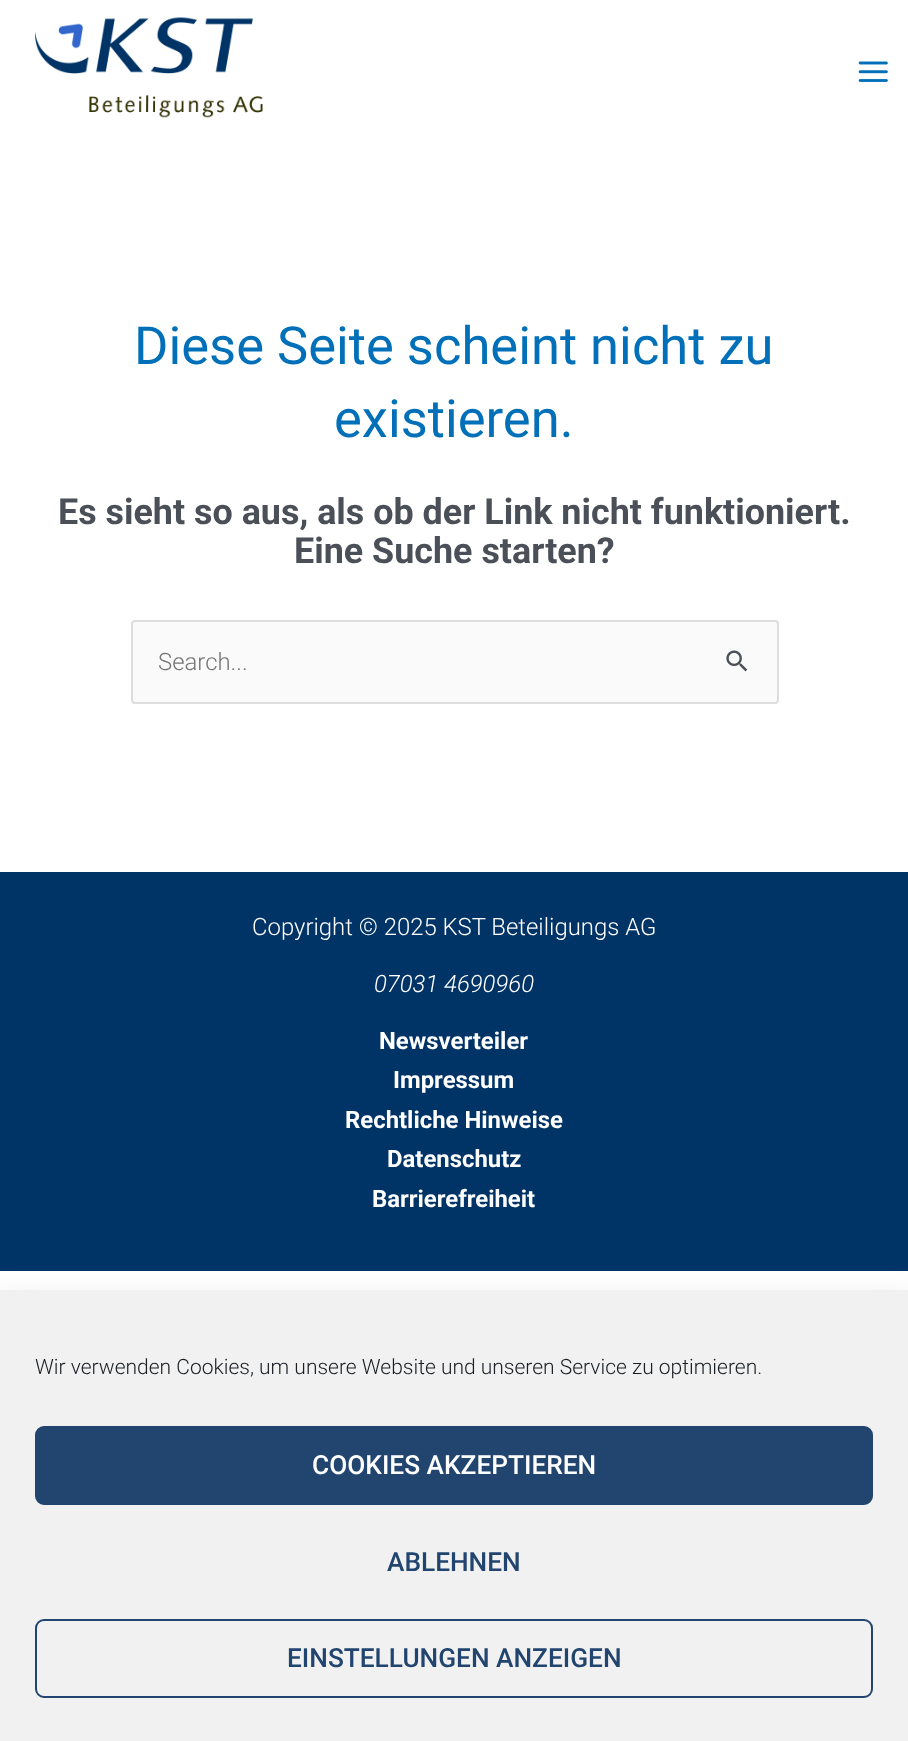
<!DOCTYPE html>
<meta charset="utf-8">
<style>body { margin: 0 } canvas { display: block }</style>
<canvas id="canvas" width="908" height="1741"></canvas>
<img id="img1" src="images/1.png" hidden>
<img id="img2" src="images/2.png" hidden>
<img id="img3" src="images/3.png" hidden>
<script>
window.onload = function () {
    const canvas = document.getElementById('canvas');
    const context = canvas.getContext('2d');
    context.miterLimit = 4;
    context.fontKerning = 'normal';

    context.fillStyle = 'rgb(255, 255, 255)';
    context.fillRect(0, 0, 908, 1741);
    context.drawImage(document.getElementById('img1'), 35, 17, 228, 101);
    context.drawImage(document.getElementById('img2'), 858, 61, 30, 21);
    context.fillStyle = 'rgb(250, 250, 250)';
    context.beginPath();
    context.roundRect(132, 621, 646, 82, 3);
    context.fill();
    context.strokeStyle = 'rgb(221, 221, 221)';
    context.lineWidth = 2;
    context.stroke();
    context.drawImage(document.getElementById('img3'), 726, 650, 22, 22);
    context.fillStyle = 'rgb(0, 51, 102)';
    context.fillRect(0, 872, 908, 399);
    context.fillStyle = 'rgba(0, 0, 0, 0.19)';
    context.filter = 'blur(17.5px)';
    context.beginPath();
    context.rect(0, 1307, 908, 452);
    context.fill();
    context.filter = 'none';
    context.fillStyle = 'rgb(241, 241, 241)';
    context.fillRect(0, 1290, 908, 451);
    context.fillStyle = 'rgb(33, 69, 111)';
    context.beginPath();
    context.roundRect(36, 1427, 836, 77, 8);
    context.fill();
    context.strokeStyle = 'rgb(33, 69, 111)';
    context.stroke();
    context.beginPath();
    context.roundRect(36, 1620, 836, 77, 8);
    context.stroke();
    context.font = '52.5px Roboto';
    context.fillStyle = 'rgb(1, 112, 185)';
    context.fillText('Diese Seite scheint nicht zu', 134, 364);
    context.fillText('existieren.', 334, 437);
    context.font = 'bold 35.9px Roboto';
    context.fillStyle = 'rgb(75, 79, 88)';
    context.fillText('Es sieht so aus, als ob der Link nicht funktioniert.', 58, 524);
    context.fillText('Eine Suche starten?', 294, 563);
    context.font = '300 23.9px Roboto';
    context.fillStyle = 'rgb(117, 117, 117)';
    context.fillText('Search...', 158, 670);
    context.fillStyle = 'rgb(255, 255, 255)';
    context.fillText('Copyright © 2025 KST Beteiligungs AG', 252, 935);
    context.font = 'italic 300 23.9px Roboto';
    context.fillText('07031 4690960', 374, 992);
    context.font = 'bold 23.9px Roboto';
    context.fillText('Newsverteiler', 379, 1049);
    context.fillText('Impressum', 393, 1088);
    context.fillText('Rechtliche Hinweise', 345, 1128);
    context.fillText('Datenschutz', 387, 1167);
    context.fillText('Barrierefreiheit', 372, 1207);
    context.font = '300 21px Roboto';
    context.fillStyle = 'rgb(25, 30, 35)';
    context.fillText('Wir verwenden Cookies, um unsere Website und unseren Service zu optimieren.', 35, 1374);
    context.font = '500 26.25px Roboto';
    context.fillStyle = 'rgb(255, 255, 255)';
    context.fillText('COOKIES AKZEPTIEREN', 312, 1474);
    context.fillStyle = 'rgb(33, 69, 111)';
    context.fillText('ABLEHNEN', 387, 1571);
    context.fillText('EINSTELLUNGEN ANZEIGEN', 287, 1667);
};
</script>
